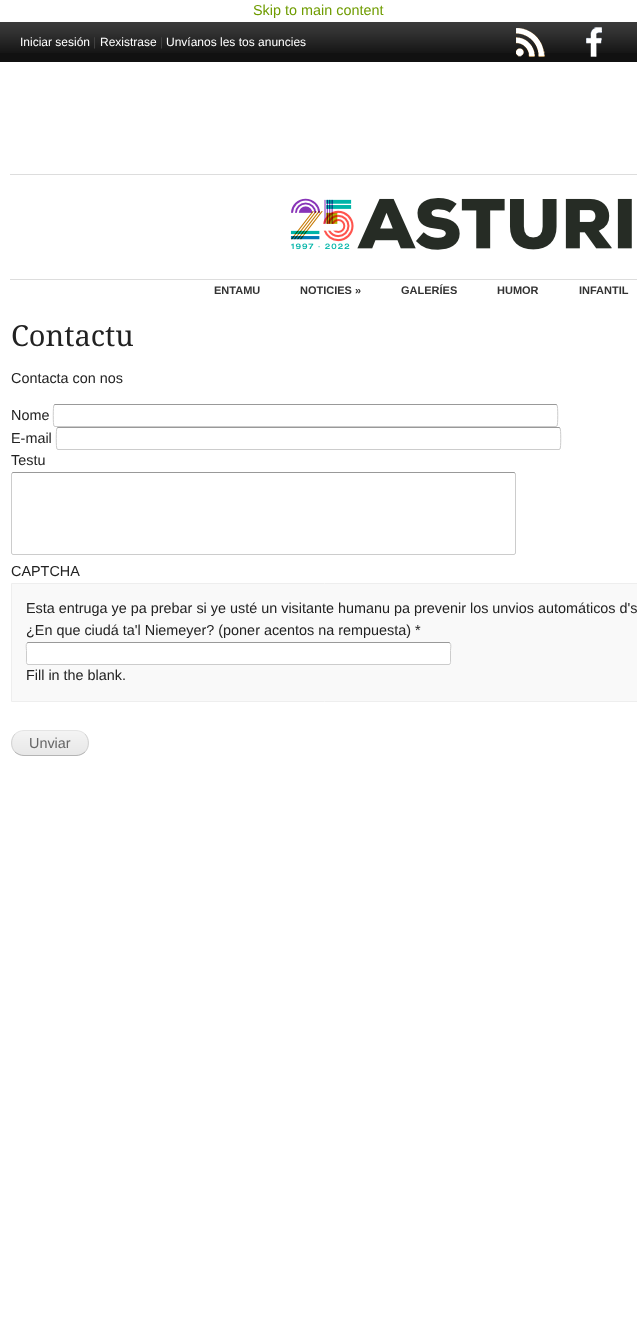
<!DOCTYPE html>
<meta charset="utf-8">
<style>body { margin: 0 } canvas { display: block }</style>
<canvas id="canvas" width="637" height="1334"></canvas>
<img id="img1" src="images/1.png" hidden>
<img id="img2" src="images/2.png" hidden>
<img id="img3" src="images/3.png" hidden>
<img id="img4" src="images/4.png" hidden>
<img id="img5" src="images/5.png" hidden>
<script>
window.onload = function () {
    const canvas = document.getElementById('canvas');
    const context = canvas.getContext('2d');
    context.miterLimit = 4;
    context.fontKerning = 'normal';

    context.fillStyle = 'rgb(255, 255, 255)';
    context.fillRect(0, 0, 637, 1334);
    context.fillStyle = 'rgb(17, 17, 17)';
    context.fillRect(0, 53, 637, 9);
    context.drawImage(document.getElementById('img1'), 0, 22, 637, 31);
    context.drawImage(document.getElementById('img2'), 516, 28, 29, 29);
    context.drawImage(document.getElementById('img3'), 586, 27, 16, 30);
    context.fillStyle = 'rgb(221, 221, 221)';
    context.fillRect(10, 174, 627, 1);
    context.drawImage(document.getElementById('img4'), 290, 198, 342, 52);
    context.fillRect(10, 279, 627, 1);
    context.beginPath();
    context.moveTo(54, 405);
    context.lineTo(55, 404.5);
    context.lineTo(556, 404.5);
    context.lineTo(557, 405);
    context.strokeStyle = 'rgb(153, 153, 153)';
    context.stroke();
    context.beginPath();
    context.moveTo(557, 405);
    context.bezierCurveTo(558, 405.5, 558, 425.5, 557, 426);
    context.lineTo(556, 426.5);
    context.lineTo(55, 426.5);
    context.lineTo(54, 426);
    context.bezierCurveTo(53, 425.5, 53, 405.5, 54, 405);
    context.strokeStyle = 'rgb(204, 204, 204)';
    context.stroke();
    context.beginPath();
    context.moveTo(57, 428);
    context.lineTo(58, 427.5);
    context.lineTo(559, 427.5);
    context.lineTo(560, 428);
    context.strokeStyle = 'rgb(153, 153, 153)';
    context.stroke();
    context.beginPath();
    context.moveTo(560, 428);
    context.bezierCurveTo(561, 428.5, 561, 448.5, 560, 449);
    context.lineTo(559, 449.5);
    context.lineTo(58, 449.5);
    context.lineTo(57, 449);
    context.bezierCurveTo(56, 448.5, 56, 428.5, 57, 428);
    context.strokeStyle = 'rgb(204, 204, 204)';
    context.stroke();
    context.beginPath();
    context.moveTo(12, 473);
    context.lineTo(13, 472.5);
    context.lineTo(514, 472.5);
    context.lineTo(515, 473);
    context.strokeStyle = 'rgb(153, 153, 153)';
    context.stroke();
    context.beginPath();
    context.moveTo(515, 473);
    context.lineTo(515.5, 474);
    context.lineTo(515.5, 553);
    context.lineTo(515, 554);
    context.lineTo(514, 554.5);
    context.lineTo(13, 554.5);
    context.lineTo(12, 554);
    context.lineTo(11.5, 553);
    context.lineTo(11.5, 474);
    context.lineTo(12, 473);
    context.strokeStyle = 'rgb(204, 204, 204)';
    context.stroke();
    context.fillStyle = 'rgb(249, 249, 249)';
    context.beginPath();
    context.rect(11.5, 583.5, 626, 118);
    context.fill();
    context.strokeStyle = 'rgb(238, 238, 238)';
    context.stroke();
    context.fillStyle = 'rgb(255, 255, 255)';
    context.beginPath();
    context.roundRect(26, 642, 425, 23, 2);
    context.fill();
    context.beginPath();
    context.moveTo(27, 643);
    context.lineTo(28, 642.5);
    context.lineTo(449, 642.5);
    context.lineTo(450, 643);
    context.strokeStyle = 'rgb(153, 153, 153)';
    context.stroke();
    context.beginPath();
    context.moveTo(450, 643);
    context.bezierCurveTo(451.5, 644.5, 450.5, 648.5, 450.5, 650.5);
    context.lineTo(450.5, 660);
    context.bezierCurveTo(450.5, 661, 451, 664.5, 449, 664.5);
    context.lineTo(28, 664.5);
    context.bezierCurveTo(26, 664.5, 26.5, 661, 26.5, 660);
    context.lineTo(26.5, 650.5);
    context.bezierCurveTo(26.5, 648.5, 25.5, 644.5, 27, 643);
    context.strokeStyle = 'rgb(204, 204, 204)';
    context.stroke();
    context.drawImage(document.getElementById('img5'), 11, 731, 78, 25);
    context.beginPath();
    context.moveTo(15, 734);
    context.bezierCurveTo(17.5, 732, 20.5, 730.5, 24, 730.5);
    context.lineTo(76, 730.5);
    context.bezierCurveTo(79.5, 730.5, 82.5, 732, 85, 734);
    context.strokeStyle = 'rgb(228, 228, 228)';
    context.stroke();
    context.beginPath();
    context.moveTo(85, 734);
    context.bezierCurveTo(89.5, 739, 89.5, 747, 85, 752);
    context.strokeStyle = 'rgb(210, 210, 210)';
    context.stroke();
    context.beginPath();
    context.moveTo(85, 752);
    context.bezierCurveTo(82.5, 754, 79.5, 755.5, 76, 755.5);
    context.lineTo(24, 755.5);
    context.bezierCurveTo(20.5, 755.5, 17.5, 754, 15, 752);
    context.strokeStyle = 'rgb(180, 180, 180)';
    context.stroke();
    context.beginPath();
    context.moveTo(15, 752);
    context.bezierCurveTo(10.5, 747, 10.5, 739, 15, 734);
    context.strokeStyle = 'rgb(210, 210, 210)';
    context.stroke();
    context.font = '14.4px Liberation Sans';
    context.fillStyle = 'rgb(111, 156, 0)';
    context.fillText('Skip to main content', 253, 15);
    context.font = '12px Liberation Sans';
    context.fillStyle = 'rgb(255, 255, 255)';
    context.fillText('Iniciar sesión', 20, 46);
    context.fillStyle = 'rgb(68, 68, 68)';
    context.fillText('|', 93, 46);
    context.fillStyle = 'rgb(255, 255, 255)';
    context.fillText('Rexistrase', 100, 46);
    context.fillStyle = 'rgb(68, 68, 68)';
    context.fillText('|', 160, 46);
    context.fillStyle = 'rgb(255, 255, 255)';
    context.fillText('Unvíanos les tos anuncies', 166, 46);
    context.font = 'bold 11px Liberation Sans';
    context.fillStyle = 'rgb(51, 51, 51)';
    context.fillText('ENTAMU', 214, 294);
    context.fillText('NOTICIES »', 300, 294);
    context.fillText('GALERÍES', 401, 294);
    context.fillText('HUMOR', 497, 294);
    context.fillText('INFANTIL', 579, 294);
    context.font = '29px Droid Serif';
    context.fillStyle = 'rgb(34, 34, 34)';
    context.fillText('Contactu', 11, 346);
    context.font = '14.4px Liberation Sans';
    context.fillText('Contacta con nos', 11, 383);
    context.fillText('Nome', 11, 420);
    context.fillText('E-mail', 11, 443);
    context.fillText('Testu', 11, 465);
    context.fillText('CAPTCHA', 11, 576);
    context.fillText('Esta entruga ye pa prebar si ye usté un visitante humanu pa prevenir los unvios automáticos d\'s', 26, 613);
    context.fillText('¿En que ciudá ta\'l Niemeyer? (poner acentos na rempuesta) *', 26, 635);
    context.fillText('Fill in the blank.', 26, 680);
    context.fillStyle = 'rgb(102, 102, 102)';
    context.fillText('Unviar', 29, 748);
};
</script>
